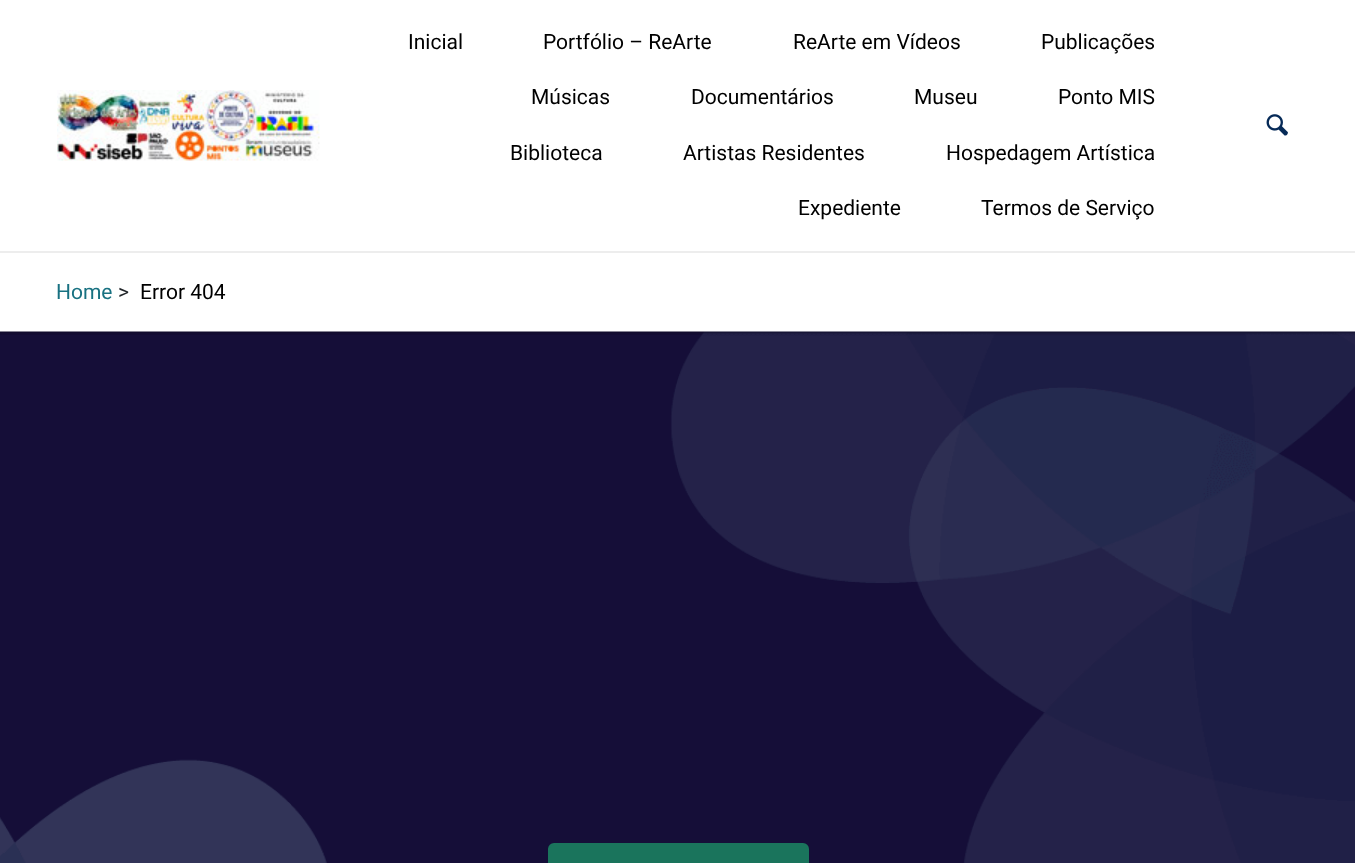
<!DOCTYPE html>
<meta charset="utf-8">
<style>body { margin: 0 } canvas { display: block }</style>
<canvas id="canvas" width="1355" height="863"></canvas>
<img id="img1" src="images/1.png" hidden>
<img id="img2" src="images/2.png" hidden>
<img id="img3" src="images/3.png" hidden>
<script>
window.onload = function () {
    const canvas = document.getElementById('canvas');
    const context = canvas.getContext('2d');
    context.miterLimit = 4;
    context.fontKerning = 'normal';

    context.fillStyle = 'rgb(255, 255, 255)';
    context.fillRect(0, 0, 1355, 863);
    context.fillStyle = 'rgb(237, 237, 237)';
    context.fillRect(0, 251, 1355, 2);
    context.drawImage(document.getElementById('img1'), 57, 90, 263, 71);
    context.drawImage(document.getElementById('img2'), 1266, 114, 22, 22);
    context.drawImage(document.getElementById('img3'), 0, 331, 1355, 532);
    context.fillStyle = 'rgb(26, 116, 92)';
    context.beginPath();
    context.roundRect(549, 844, 259, 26, 5);
    context.fill();
    context.strokeStyle = 'rgb(26, 116, 92)';
    context.lineWidth = 2;
    context.stroke();
    context.font = '21px Roboto';
    context.fillStyle = 'rgb(0, 0, 0)';
    context.fillText('Inicial', 408, 49);
    context.fillText('Portfólio – ReArte', 543, 49);
    context.fillText('ReArte em Vídeos', 793, 49);
    context.fillText('Publicações', 1041, 49);
    context.fillText('Músicas', 531, 104);
    context.fillText('Documentários', 691, 104);
    context.fillText('Museu', 914, 104);
    context.fillText('Ponto MIS', 1058, 104);
    context.fillText('Biblioteca', 510, 160);
    context.fillText('Artistas Residentes', 683, 160);
    context.fillText('Hospedagem Artística', 946, 160);
    context.fillText('Expediente', 798, 215);
    context.fillText('Termos de Serviço', 981, 215);
    context.fillStyle = 'rgb(24, 113, 129)';
    context.fillText('Home', 56, 299);
    context.fillStyle = 'rgb(33, 37, 41)';
    context.fillText('>', 118, 299);
    context.fillStyle = 'rgb(0, 0, 0)';
    context.fillText('Error 404', 140, 299);
};
</script>
